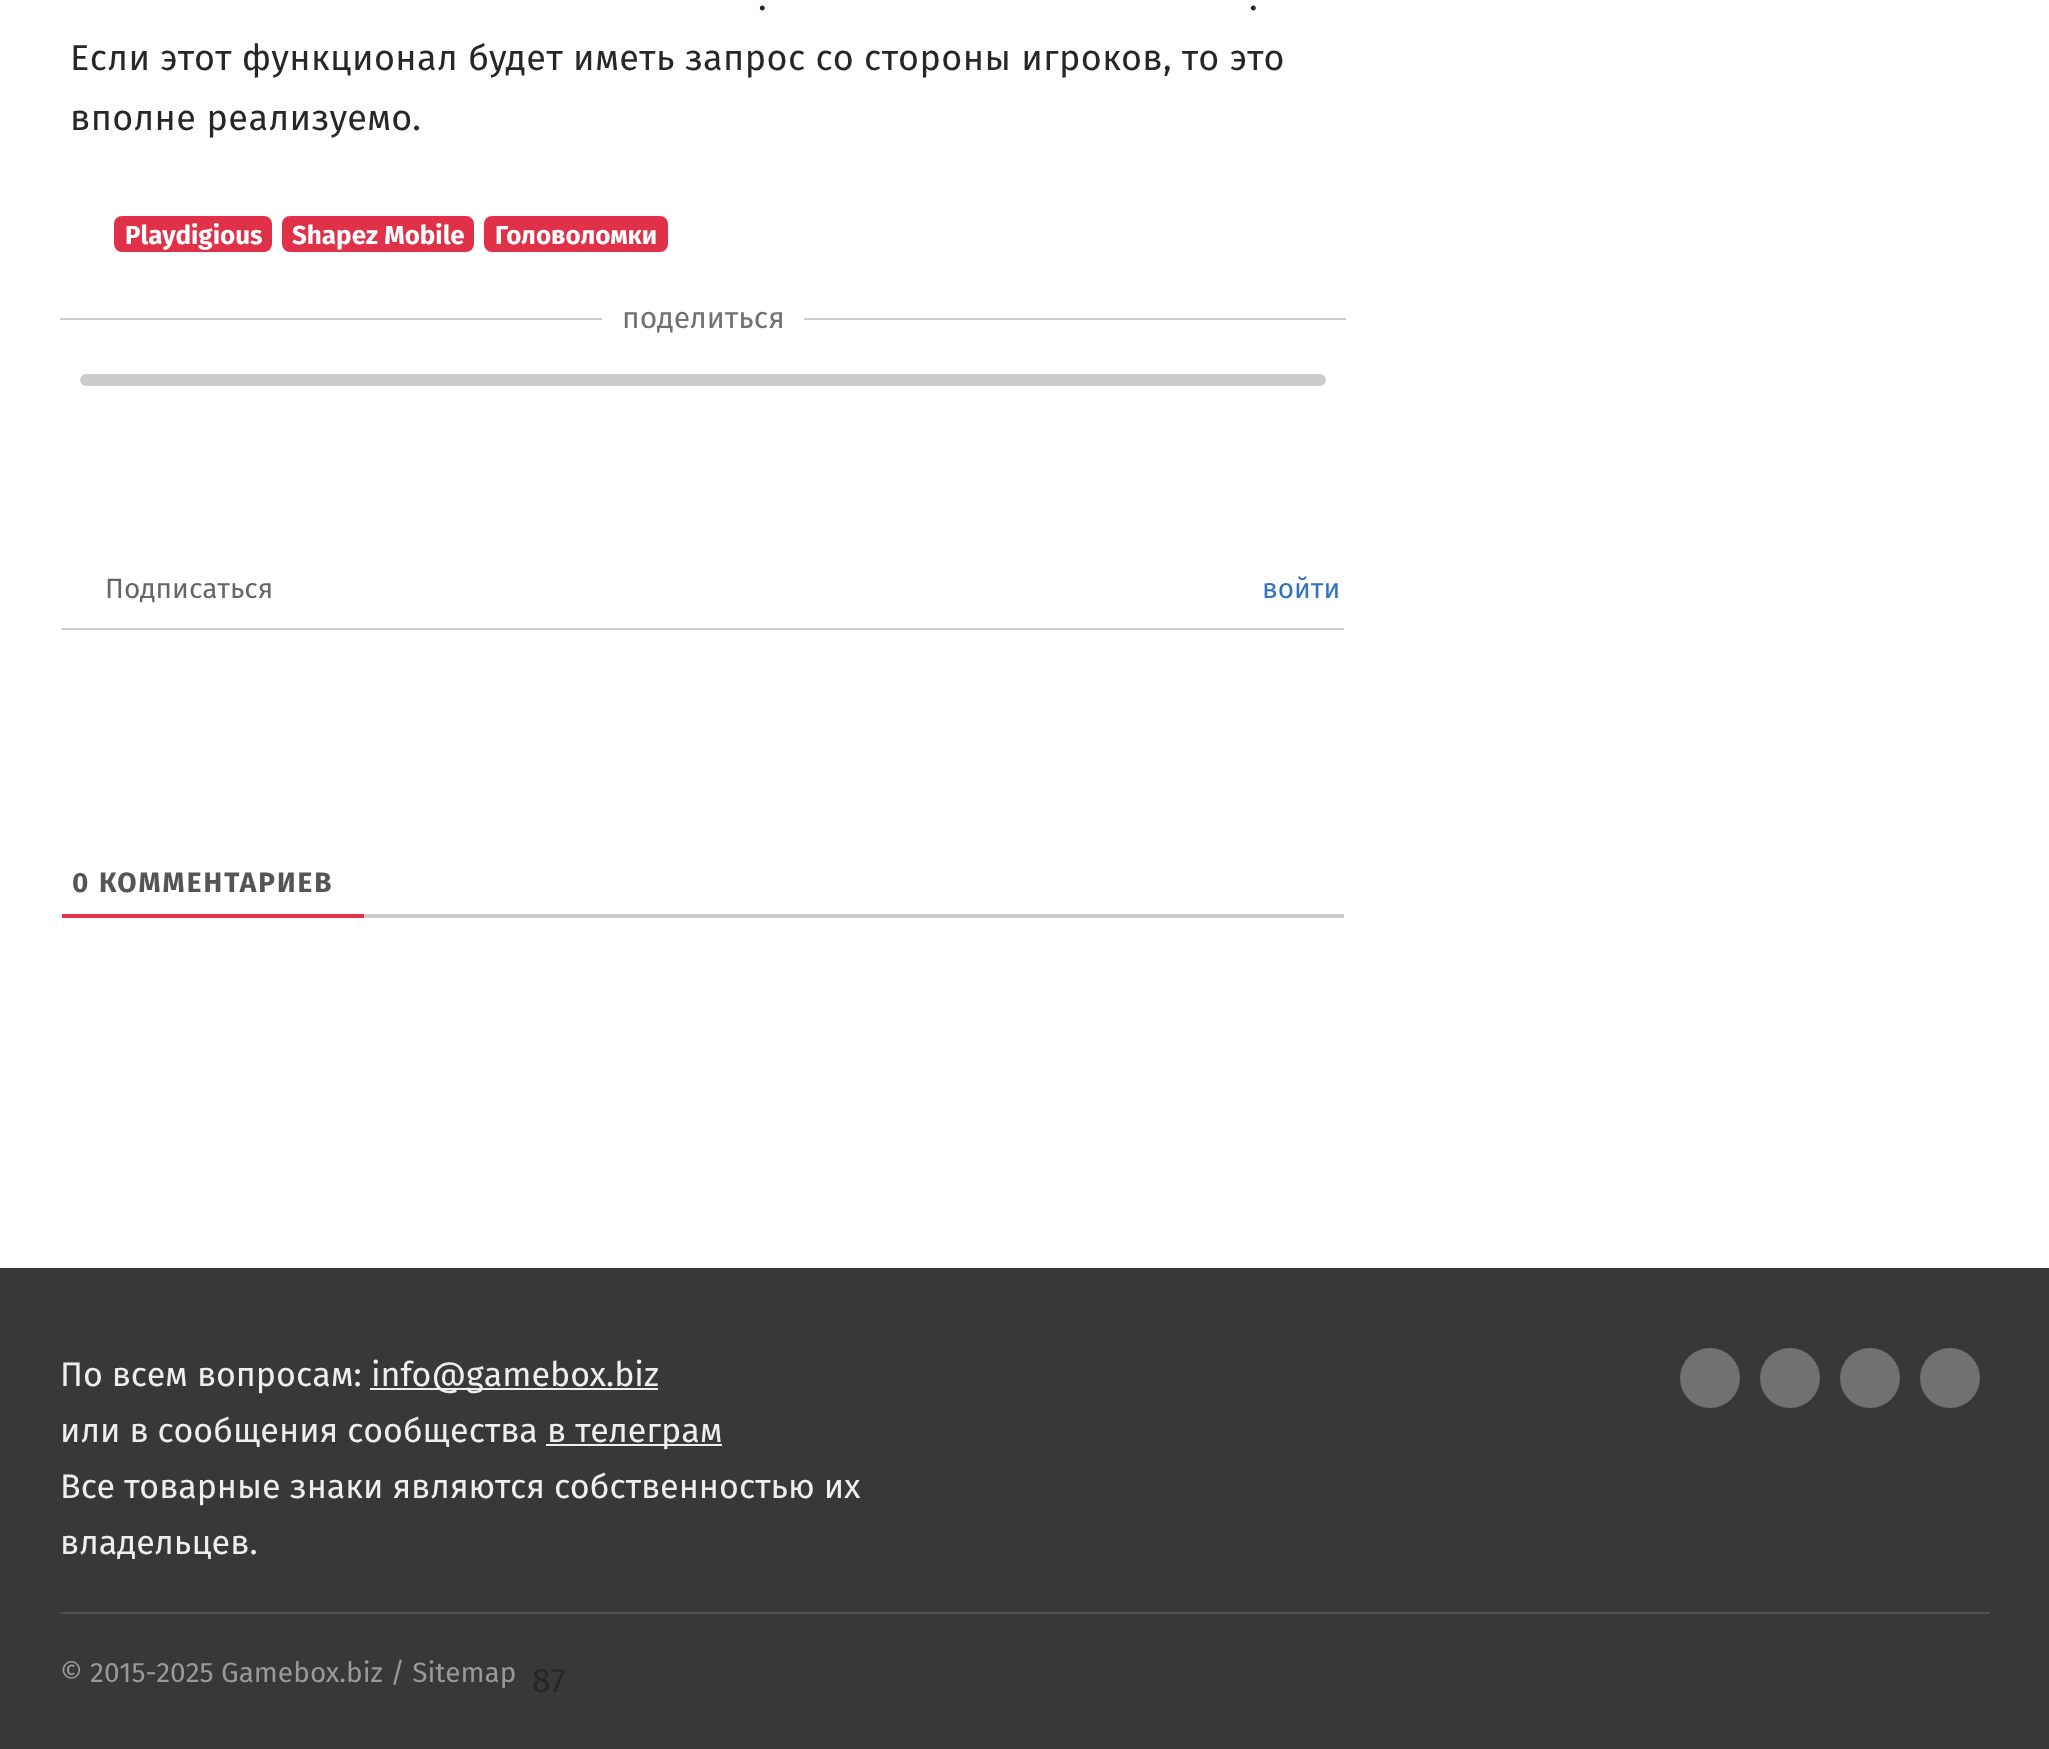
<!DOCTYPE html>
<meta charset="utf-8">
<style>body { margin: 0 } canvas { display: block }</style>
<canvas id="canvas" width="2049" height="1749"></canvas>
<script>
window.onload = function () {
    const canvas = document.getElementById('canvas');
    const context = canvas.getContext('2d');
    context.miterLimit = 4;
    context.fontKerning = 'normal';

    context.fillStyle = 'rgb(255, 255, 255)';
    context.fillRect(0, 0, 2049, 1749);
    context.fillStyle = 'rgb(225, 49, 73)';
    context.beginPath();
    context.roundRect(114, 216, 158, 36, 8);
    context.fill();
    context.beginPath();
    context.roundRect(282, 216, 192, 36, 8);
    context.fill();
    context.beginPath();
    context.roundRect(484, 216, 184, 36, 8);
    context.fill();
    context.fillStyle = 'rgb(204, 204, 204)';
    context.fillRect(60, 318, 542, 2);
    context.fillRect(804, 318, 542, 2);
    context.beginPath();
    context.roundRect(80, 374, 1246, 12, 6);
    context.fill();
    context.fillRect(62, 628, 1282, 2);
    context.fillRect(364, 914, 980, 4);
    context.fillStyle = 'rgb(225, 49, 73)';
    context.fillRect(62, 914, 302, 4);
    context.fillStyle = 'rgb(56, 56, 56)';
    context.fillRect(0, 1268, 2049, 481);
    context.fillStyle = 'rgb(238, 238, 238)';
    context.fillRect(370, 1388, 288, 2);
    context.fillRect(546, 1444, 176, 2);
    context.fillStyle = 'rgb(113, 113, 113)';
    context.beginPath();
    context.arc(1710, 1378, 30, 0, 2 * Math.PI);
    context.fill();
    context.beginPath();
    context.arc(1790, 1378, 30, 0, 2 * Math.PI);
    context.fill();
    context.beginPath();
    context.arc(1870, 1378, 30, 0, 2 * Math.PI);
    context.fill();
    context.beginPath();
    context.arc(1950, 1378, 30, 0, 2 * Math.PI);
    context.fill();
    context.fillStyle = 'rgb(80, 80, 80)';
    context.fillRect(60, 1612, 1930, 2);
    context.letterSpacing = '0.4px';
    context.font = '36px Fira Sans';
    context.fillStyle = 'rgb(39, 39, 39)';
    context.fillText('.', 758, 10);
    context.fillText('.', 1249, 10);
    context.fillText('Если этот функционал будет иметь запрос со стороны игроков, то это', 70, 70);
    context.fillText('вполне реализуемо.', 70, 130);
    context.letterSpacing = '0px';
    context.font = 'bold 26px Fira Sans';
    context.fillStyle = 'rgb(255, 255, 255)';
    context.fillText('Playdigious', 125, 244);
    context.fillText('Shapez Mobile', 292, 244);
    context.fillText('Головоломки', 495, 244);
    context.font = '30px Fira Sans';
    context.fillStyle = 'rgb(113, 113, 113)';
    context.fillText('поделиться', 622, 328);
    context.font = '28px Fira Sans';
    context.fillStyle = 'rgb(102, 102, 102)';
    context.fillText('Подписаться', 105, 598);
    context.fillStyle = 'rgb(50, 114, 191)';
    context.fillText('войти', 1262, 598);
    context.letterSpacing = '2px';
    context.font = 'bold 28px Fira Sans';
    context.fillStyle = 'rgb(85, 85, 85)';
    context.fillText('0 КОММЕНТАРИЕВ', 72, 892);
    context.letterSpacing = '0px';
    context.font = '34px Fira Sans';
    context.fillStyle = 'rgb(238, 238, 238)';
    context.fillText('По всем вопросам:', 60, 1386);
    context.fillText('info@gamebox.biz', 371, 1386);
    context.fillText('или в сообщения сообщества', 60, 1442);
    context.fillText('в телеграм', 547, 1442);
    context.fillText('Все товарные знаки являются собственностью их', 60, 1498);
    context.fillText('владельцев.', 60, 1554);
    context.font = '28px Fira Sans';
    context.fillStyle = 'rgb(153, 153, 153)';
    context.fillText('© 2015-2025 Gamebox.biz / Sitemap', 60, 1682);
    context.font = '34px Fira Sans';
    context.fillStyle = 'rgb(39, 39, 39)';
    context.fillText('87', 532, 1692);
};
</script>
